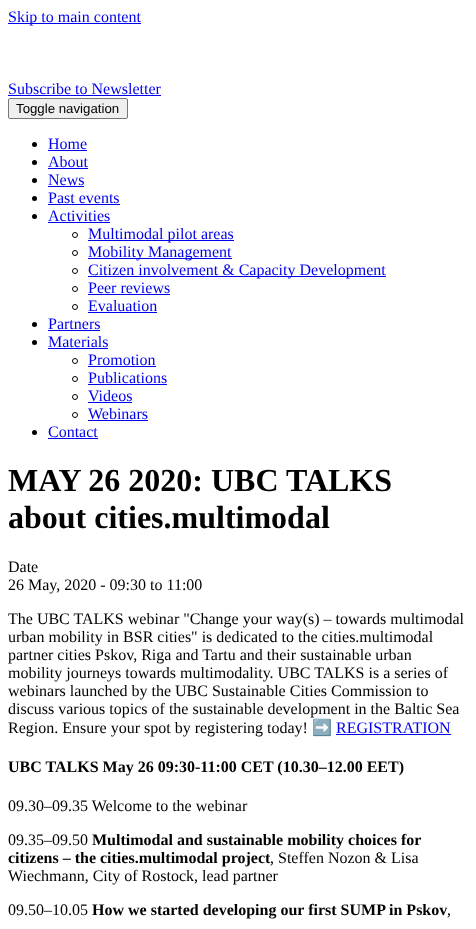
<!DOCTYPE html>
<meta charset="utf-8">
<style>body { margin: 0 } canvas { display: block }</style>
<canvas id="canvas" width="476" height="929"></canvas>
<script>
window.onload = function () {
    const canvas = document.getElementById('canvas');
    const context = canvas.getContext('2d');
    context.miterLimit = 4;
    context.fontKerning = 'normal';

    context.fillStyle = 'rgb(255, 255, 255)';
    context.fillRect(0, 0, 476, 929);
    context.fillStyle = 'rgb(0, 0, 238)';
    context.fillRect(8, 23, 133, 1);
    context.fillRect(8, 95, 153, 1);
    context.fillStyle = 'rgb(239, 239, 239)';
    context.beginPath();
    context.roundRect(8.5, 98.5, 119, 20, 1.5);
    context.fill();
    context.strokeStyle = 'rgb(118, 118, 118)';
    context.stroke();
    context.fillStyle = 'rgb(0, 0, 0)';
    context.beginPath();
    context.arc(34.5, 144.5, 2.5, 0, 2 * Math.PI);
    context.fill();
    context.fillStyle = 'rgb(0, 0, 238)';
    context.fillRect(48, 150, 39, 1);
    context.fillStyle = 'rgb(0, 0, 0)';
    context.beginPath();
    context.arc(34.5, 162.5, 2.5, 0, 2 * Math.PI);
    context.fill();
    context.fillStyle = 'rgb(0, 0, 238)';
    context.fillRect(48, 168, 40, 1);
    context.fillStyle = 'rgb(0, 0, 0)';
    context.beginPath();
    context.arc(34.5, 180.5, 2.5, 0, 2 * Math.PI);
    context.fill();
    context.fillStyle = 'rgb(0, 0, 238)';
    context.fillRect(48, 186, 36, 1);
    context.fillStyle = 'rgb(0, 0, 0)';
    context.beginPath();
    context.arc(34.5, 198.5, 2.5, 0, 2 * Math.PI);
    context.fill();
    context.fillStyle = 'rgb(0, 0, 238)';
    context.fillRect(48, 204, 72, 1);
    context.fillStyle = 'rgb(0, 0, 0)';
    context.beginPath();
    context.arc(34.5, 216.5, 2.5, 0, 2 * Math.PI);
    context.fill();
    context.fillStyle = 'rgb(0, 0, 238)';
    context.fillRect(48, 222, 62, 1);
    context.beginPath();
    context.arc(75, 235, 2.5, 0, 2 * Math.PI);
    context.strokeStyle = 'rgb(0, 0, 0)';
    context.stroke();
    context.fillRect(88, 240, 146, 1);
    context.beginPath();
    context.arc(75, 253, 2.5, 0, 2 * Math.PI);
    context.stroke();
    context.fillRect(88, 258, 144, 1);
    context.beginPath();
    context.arc(75, 271, 2.5, 0, 2 * Math.PI);
    context.stroke();
    context.fillRect(88, 276, 298, 1);
    context.beginPath();
    context.arc(75, 289, 2.5, 0, 2 * Math.PI);
    context.stroke();
    context.fillRect(88, 294, 82, 1);
    context.beginPath();
    context.arc(75, 307, 2.5, 0, 2 * Math.PI);
    context.stroke();
    context.fillRect(88, 312, 69, 1);
    context.fillStyle = 'rgb(0, 0, 0)';
    context.beginPath();
    context.arc(34.5, 324.5, 2.5, 0, 2 * Math.PI);
    context.fill();
    context.fillStyle = 'rgb(0, 0, 238)';
    context.fillRect(48, 330, 52, 1);
    context.fillStyle = 'rgb(0, 0, 0)';
    context.beginPath();
    context.arc(34.5, 342.5, 2.5, 0, 2 * Math.PI);
    context.fill();
    context.fillStyle = 'rgb(0, 0, 238)';
    context.fillRect(48, 348, 60, 1);
    context.beginPath();
    context.arc(75, 361, 2.5, 0, 2 * Math.PI);
    context.stroke();
    context.fillRect(88, 366, 68, 1);
    context.beginPath();
    context.arc(75, 379, 2.5, 0, 2 * Math.PI);
    context.stroke();
    context.fillRect(88, 384, 79, 1);
    context.beginPath();
    context.arc(75, 397, 2.5, 0, 2 * Math.PI);
    context.stroke();
    context.fillRect(88, 402, 44, 1);
    context.beginPath();
    context.arc(75, 415, 2.5, 0, 2 * Math.PI);
    context.stroke();
    context.fillRect(88, 420, 60, 1);
    context.fillStyle = 'rgb(0, 0, 0)';
    context.beginPath();
    context.arc(34.5, 432.5, 2.5, 0, 2 * Math.PI);
    context.fill();
    context.fillStyle = 'rgb(0, 0, 238)';
    context.fillRect(48, 438, 50, 1);
    context.fillRect(336, 734, 115, 1);
    context.font = '16px Liberation Serif';
    context.fillText('Skip to main content', 8, 22);
    context.fillText('Subscribe to Newsletter', 8, 94);
    context.font = '13.25px Liberation Sans';
    context.fillStyle = 'rgb(0, 0, 0)';
    context.fillText('Toggle navigation', 16, 113);
    context.font = '16px Liberation Serif';
    context.fillStyle = 'rgb(0, 0, 238)';
    context.fillText('Home', 48, 149);
    context.fillText('About', 48, 167);
    context.fillText('News', 48, 185);
    context.fillText('Past events', 48, 203);
    context.fillText('Activities', 48, 221);
    context.fillText('Multimodal pilot areas', 88, 239);
    context.fillText('Mobility Management', 88, 257);
    context.fillText('Citizen involvement & Capacity Development', 88, 275);
    context.fillText('Peer reviews', 88, 293);
    context.fillText('Evaluation', 88, 311);
    context.fillText('Partners', 48, 329);
    context.fillText('Materials', 48, 347);
    context.fillText('Promotion', 88, 365);
    context.fillText('Publications', 88, 383);
    context.fillText('Videos', 88, 401);
    context.fillText('Webinars', 88, 419);
    context.fillText('Contact', 48, 437);
    context.font = 'bold 32px Liberation Serif';
    context.fillStyle = 'rgb(0, 0, 0)';
    context.fillText('MAY 26 2020: UBC TALKS', 8, 491);
    context.fillText('about cities.multimodal', 8, 528);
    context.font = '16px Liberation Serif';
    context.fillText('Date', 8, 572);
    context.fillText('26 May, 2020 - 09:30 to 11:00', 8, 590);
    context.fillText('The UBC TALKS webinar "Change your way(s) – towards multimodal', 8, 624);
    context.fillText('urban mobility in BSR cities" is dedicated to the cities.multimodal', 8, 642);
    context.fillText('partner cities Pskov, Riga and Tartu and their sustainable urban', 8, 660);
    context.fillText('mobility journeys towards multimodality. UBC TALKS is a series of', 8, 678);
    context.fillText('webinars launched by the UBC Sustainable Cities Commission to', 8, 696);
    context.fillText('discuss various topics of the sustainable development in the Baltic Sea', 8, 714);
    context.fillText('Region. Ensure your spot by registering today!', 8, 733);
    context.font = '16px Noto Color Emoji';
    context.fillText('➡️', 312, 733);
    context.font = '16px Liberation Serif';
    context.fillStyle = 'rgb(0, 0, 238)';
    context.fillText('REGISTRATION', 336, 733);
    context.font = 'bold 16px Liberation Serif';
    context.fillStyle = 'rgb(0, 0, 0)';
    context.fillText('UBC TALKS May 26 09:30-11:00 CET (10.30–12.00 EET)', 8, 772);
    context.font = '16px Liberation Serif';
    context.fillText('09.30–09.35 Welcome to the webinar', 8, 811);
    context.fillText('09.35–09.50', 8, 845);
    context.font = 'bold 16px Liberation Serif';
    context.fillText('Multimodal and sustainable mobility choices for', 92, 845);
    context.fillText('citizens – the cities.multimodal project', 8, 863);
    context.font = '16px Liberation Serif';
    context.fillText(', Steffen Nozon & Lisa', 270, 863);
    context.fillText('Wiechmann, City of Rostock, lead partner', 8, 881);
    context.fillText('09.50–10.05', 8, 915);
    context.font = 'bold 16px Liberation Serif';
    context.fillText('How we started developing our first SUMP in Pskov', 92, 915);
    context.font = '16px Liberation Serif';
    context.fillText(',', 447, 915);
};
</script>
